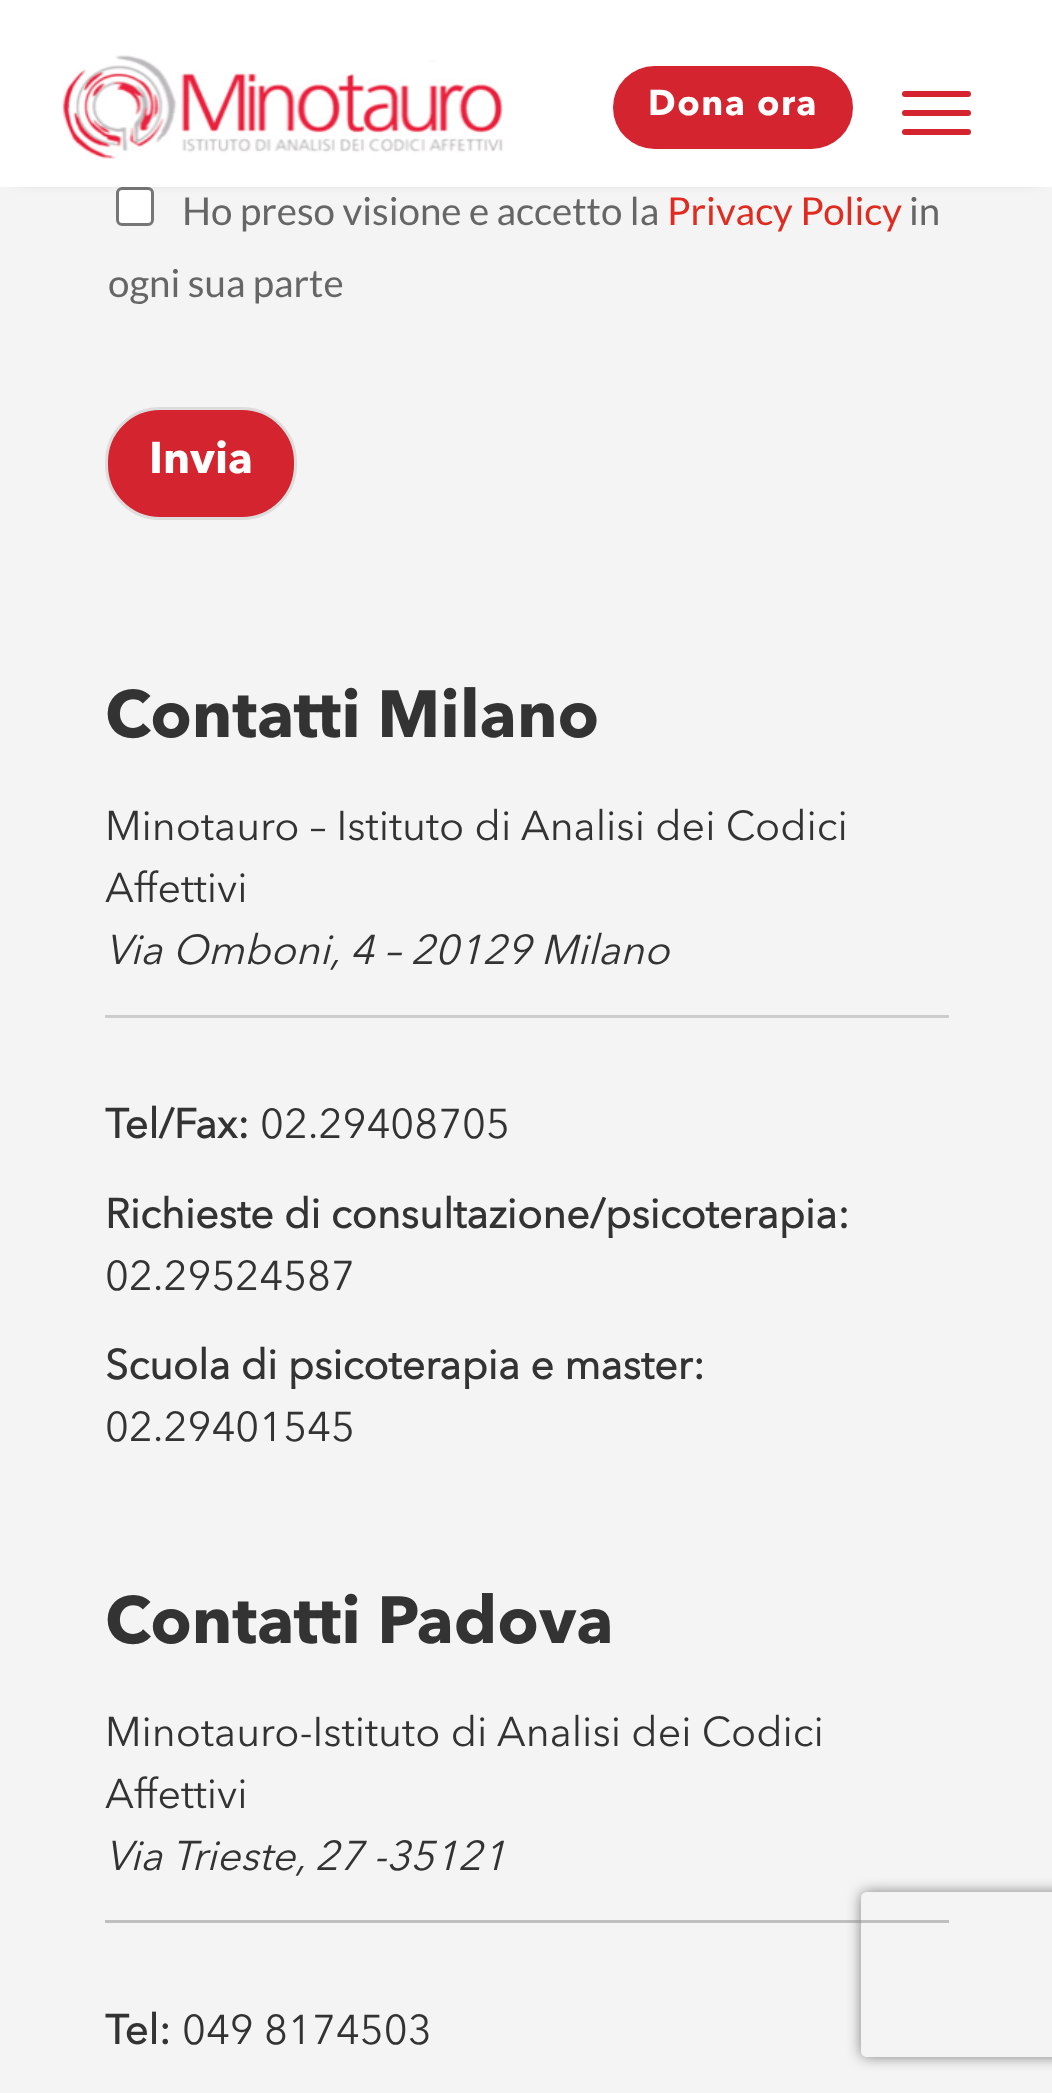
<!DOCTYPE html>
<meta charset="utf-8">
<style>body { margin: 0 } canvas { display: block }</style>
<canvas id="canvas" width="1052" height="2093"></canvas>
<img id="img1" src="images/1.png" hidden>
<script>
window.onload = function () {
    const canvas = document.getElementById('canvas');
    const context = canvas.getContext('2d');
    context.miterLimit = 4;
    context.fontKerning = 'normal';

    context.fillStyle = 'rgb(244, 244, 244)';
    context.fillRect(0, 0, 1052, 2093);
    context.fillStyle = 'rgb(255, 255, 255)';
    context.fillRect(0, 0, 1052, 55);
    context.beginPath();
    context.roundRect(117.5, 188.5, 35, 36, 4.5);
    context.fill();
    context.strokeStyle = 'rgb(118, 118, 118)';
    context.lineWidth = 3;
    context.stroke();
    context.fillStyle = 'rgba(0, 0, 0, 0.3)';
    context.filter = 'blur(7px)';
    context.beginPath();
    context.rect(17, 80, 1020, 99);
    context.fill();
    context.filter = 'none';
    context.fillStyle = 'rgb(255, 255, 255)';
    context.fillRect(0, 55, 1052, 132);
    context.drawImage(document.getElementById('img1'), 62, 55, 442, 105);
    context.fillStyle = 'rgb(212, 36, 47)';
    context.beginPath();
    context.roundRect(613, 66, 240, 83, 41.5);
    context.fill();
    context.beginPath();
    context.roundRect(106.5, 408.5, 189, 110, 53.5);
    context.fill();
    context.strokeStyle = 'rgb(221, 221, 221)';
    context.stroke();
    context.fillStyle = 'rgb(205, 205, 205)';
    context.fillRect(105, 1015, 844, 3);
    context.fillStyle = 'rgb(192, 191, 191)';
    context.fillRect(105, 1920, 844, 3);
    context.fillStyle = 'rgb(212, 36, 47)';
    context.beginPath();
    context.roundRect(902, 110, 69, 6, 3);
    context.fill();
    context.beginPath();
    context.roundRect(902, 91, 69, 6, 3);
    context.fill();
    context.beginPath();
    context.roundRect(902, 129, 69, 6, 3);
    context.fill();
    context.save();
    context.beginPath();
    context.moveTo(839, 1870);
    context.lineTo(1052, 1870);
    context.lineTo(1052, 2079);
    context.lineTo(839, 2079);
    context.closePath();
    context.moveTo(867, 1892);
    context.lineTo(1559, 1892);
    context.bezierCurveTo(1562.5, 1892, 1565, 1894.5, 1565, 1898);
    context.lineTo(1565, 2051);
    context.bezierCurveTo(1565, 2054.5, 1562.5, 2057, 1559, 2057);
    context.lineTo(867, 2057);
    context.bezierCurveTo(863.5, 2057, 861, 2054.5, 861, 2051);
    context.lineTo(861, 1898);
    context.bezierCurveTo(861, 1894.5, 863.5, 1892, 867, 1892);
    context.closePath();
    context.clip('evenodd');
    context.fillStyle = 'rgb(128, 128, 128)';
    context.filter = 'blur(7px)';
    context.beginPath();
    context.roundRect(861, 1892, 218, 165, 6);
    context.fill();
    context.filter = 'none';
    context.restore();
    context.letterSpacing = '1.5px';
    context.font = 'bold 35.75px Avenir Next';
    context.fillStyle = 'rgb(255, 255, 255)';
    context.fillText('Dona ora', 648, 115);
    context.letterSpacing = '0px';
    context.font = '38.5px Lato';
    context.fillStyle = 'rgb(102, 102, 102)';
    context.fillText('Ho preso visione e accetto la', 182, 225);
    context.fillStyle = 'rgb(224, 43, 32)';
    context.fillText('Privacy Policy', 667, 225);
    context.fillStyle = 'rgb(102, 102, 102)';
    context.fillText('in', 909, 225);
    context.fillText('ogni sua parte', 108, 297);
    context.font = 'bold 44px Avenir Next';
    context.fillStyle = 'rgb(255, 255, 255)';
    context.fillText('Invia', 149, 473);
    context.font = 'bold 66px Avenir Next';
    context.fillStyle = 'rgb(51, 51, 51)';
    context.fillText('Contatti Milano', 105, 737);
    context.font = '41.25px Avenir Next';
    context.fillText('Minotauro – Istituto di Analisi dei Codici', 105, 840);
    context.fillText('Affettivi', 105, 902);
    context.font = 'italic 41.25px Avenir Next';
    context.fillText('Via Omboni, 4 – 20129 Milano', 105, 964);
    context.font = 'bold 41.25px "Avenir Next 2"';
    context.fillText('Tel/Fax:', 105, 1138);
    context.font = '41.25px Avenir Next';
    context.fillText('02.29408705', 260, 1138);
    context.font = 'bold 41.25px "Avenir Next 2"';
    context.fillText('Richieste di consultazione/psicoterapia:', 105, 1228);
    context.font = '41.25px Avenir Next';
    context.fillText('02.29524587', 105, 1290);
    context.font = 'bold 41.25px "Avenir Next 2"';
    context.fillText('Scuola di psicoterapia e master:', 105, 1379);
    context.font = '41.25px Avenir Next';
    context.fillText('02.29401545', 105, 1441);
    context.font = 'bold 66px Avenir Next';
    context.fillText('Contatti Padova', 105, 1643);
    context.font = '41.25px Avenir Next';
    context.fillText('Minotauro-Istituto di Analisi dei Codici', 105, 1746);
    context.fillText('Affettivi', 105, 1808);
    context.font = 'italic 41.25px Avenir Next';
    context.fillText('Via Trieste, 27 -35121', 105, 1870);
    context.font = 'bold 41.25px "Avenir Next 2"';
    context.fillText('Tel:', 105, 2044);
    context.font = '41.25px Avenir Next';
    context.fillText('049 8174503', 182, 2044);
};
</script>
